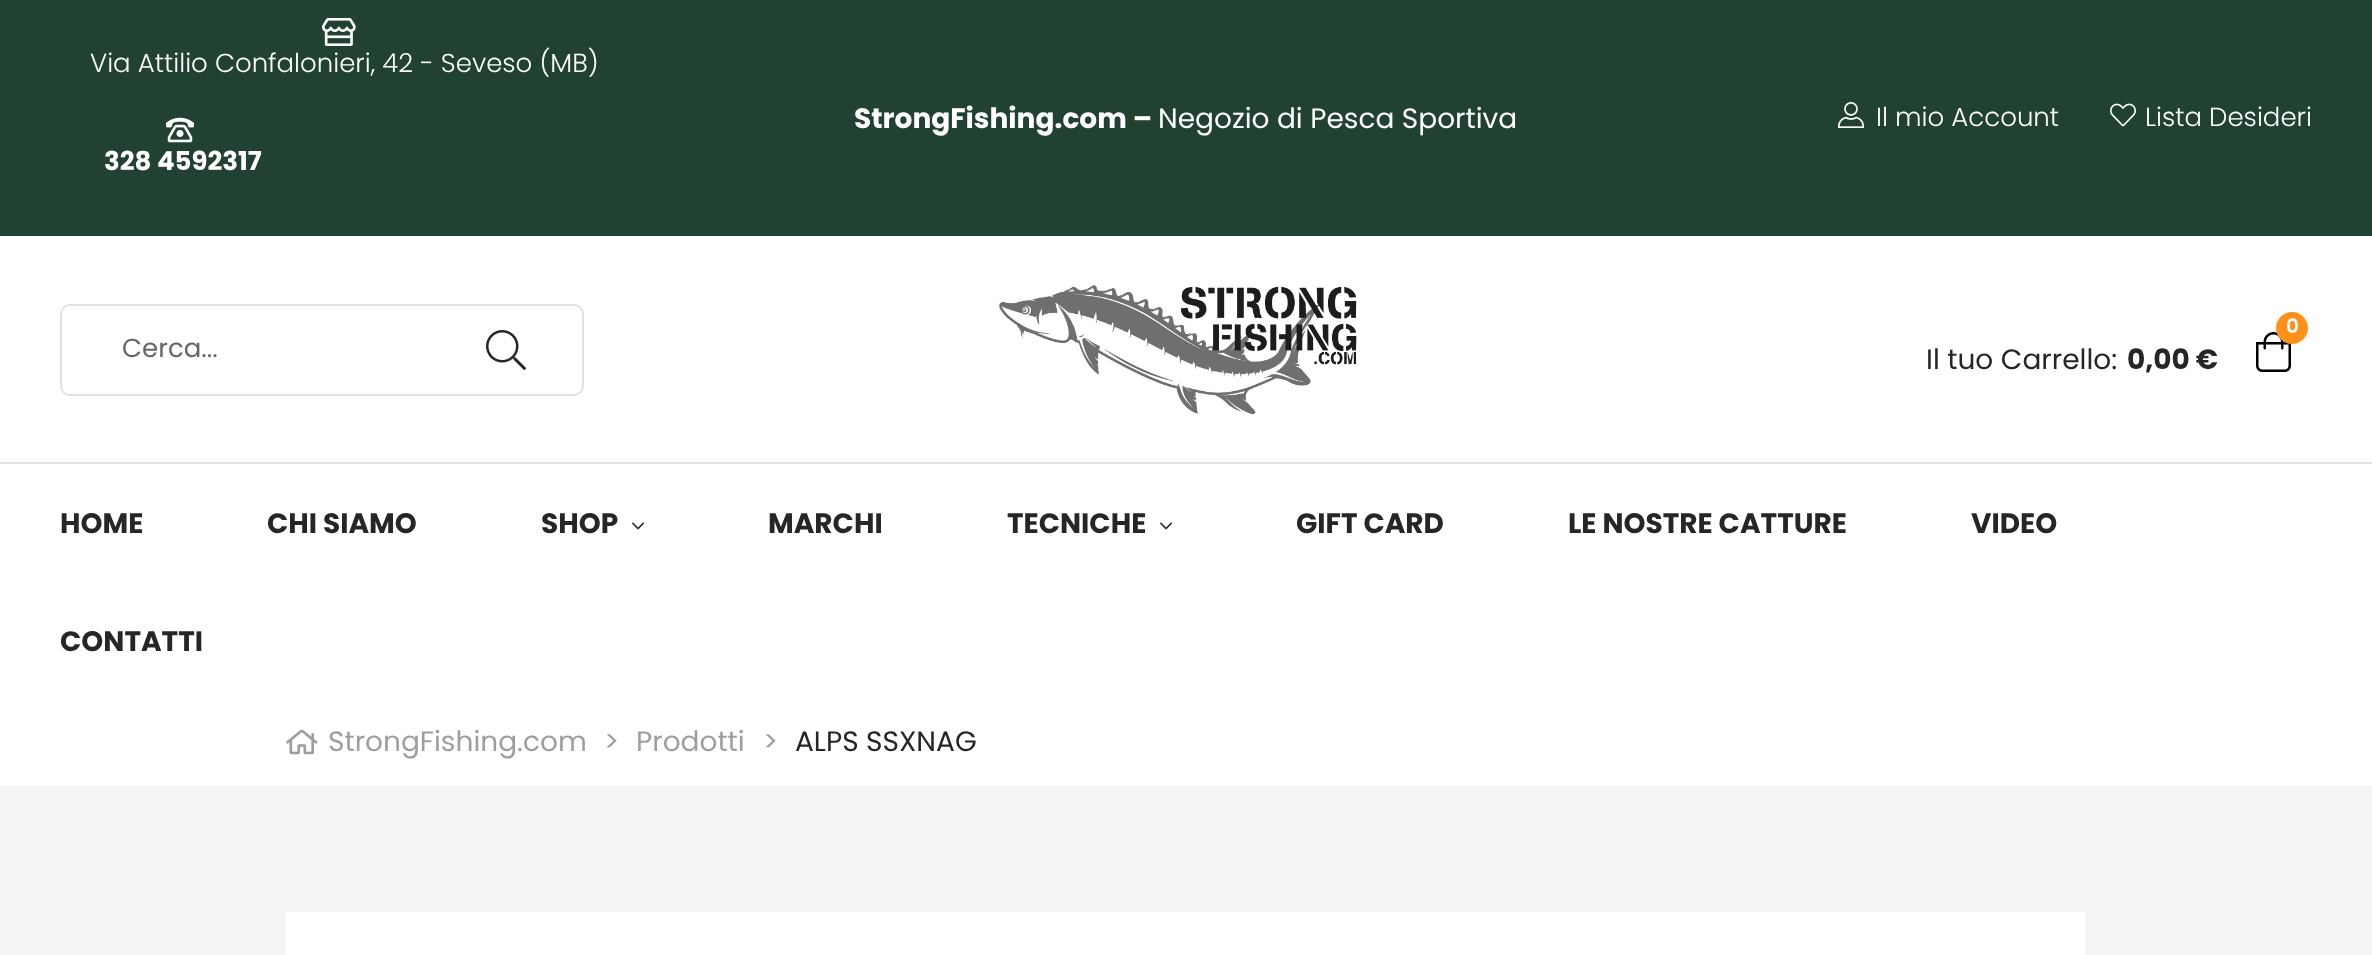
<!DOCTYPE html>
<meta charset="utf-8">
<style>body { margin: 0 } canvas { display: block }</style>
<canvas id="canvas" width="2372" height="955"></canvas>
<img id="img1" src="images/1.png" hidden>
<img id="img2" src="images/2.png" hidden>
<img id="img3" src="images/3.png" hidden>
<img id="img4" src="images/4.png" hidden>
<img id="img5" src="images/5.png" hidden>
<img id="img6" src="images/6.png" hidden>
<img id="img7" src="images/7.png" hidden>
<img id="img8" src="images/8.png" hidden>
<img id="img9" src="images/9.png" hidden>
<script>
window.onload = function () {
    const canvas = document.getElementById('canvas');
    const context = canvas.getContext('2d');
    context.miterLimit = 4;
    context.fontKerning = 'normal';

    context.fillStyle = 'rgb(244, 244, 244)';
    context.fillRect(0, 0, 2372, 955);
    context.fillStyle = 'rgb(33, 66, 50)';
    context.fillRect(0, 0, 2372, 236);
    context.drawImage(document.getElementById('img1'), 322, 18, 34, 28);
    context.drawImage(document.getElementById('img2'), 166, 117, 28, 26);
    context.drawImage(document.getElementById('img3'), 1838, 102, 26, 26);
    context.drawImage(document.getElementById('img4'), 2110, 103, 26, 24);
    context.fillStyle = 'rgb(255, 255, 255)';
    context.fillRect(0, 236, 2372, 226);
    context.fillStyle = 'rgb(225, 225, 225)';
    context.fillRect(0, 462, 2372, 2);
    context.beginPath();
    context.roundRect(61, 305, 522, 90, 9);
    context.strokeStyle = 'rgb(225, 225, 225)';
    context.lineWidth = 2;
    context.stroke();
    context.fillStyle = 'rgb(255, 255, 255)';
    context.beginPath();
    context.roundRect(62, 306, 374, 88, [8, 0, 0, 8]);
    context.fill();
    context.drawImage(document.getElementById('img5'), 486, 330, 40, 40);
    context.drawImage(document.getElementById('img6'), 999, 285, 358, 130);
    context.drawImage(document.getElementById('img7'), 2256, 332, 35, 40);
    context.fillStyle = 'rgb(255, 145, 27)';
    context.beginPath();
    context.arc(2292, 328, 16, 0, 2 * Math.PI);
    context.fill();
    context.fillStyle = 'rgb(255, 255, 255)';
    context.fillRect(0, 464, 2372, 322);
    context.drawImage(document.getElementById('img8'), 632, 522, 12, 8);
    context.drawImage(document.getElementById('img8'), 1160, 522, 12, 8);
    context.drawImage(document.getElementById('img9'), 286, 729, 32, 26);
    context.fillRect(286, 912, 1800, 43);
    context.font = '300 26px Poppins';
    context.fillText('Via Attilio Confalonieri, 42 - Seveso (MB)', 90, 72);
    context.font = 'bold 26px Poppins';
    context.fillText('328 4592317', 104, 170);
    context.font = 'bold 28px Poppins';
    context.fillText('StrongFishing.com –', 854, 128);
    context.font = '28px Poppins';
    context.fillText('Negozio di Pesca Sportiva', 1158, 128);
    context.font = '300 26px Poppins';
    context.fillText('Il mio Account', 1876, 126);
    context.fillText('Lista Desideri', 2145, 126);
    context.font = '26px Poppins';
    context.fillStyle = 'rgb(102, 102, 102)';
    context.fillText('Cerca...', 122, 357);
    context.font = '600 20px Poppins';
    context.fillStyle = 'rgb(255, 255, 255)';
    context.fillText('0', 2286, 333);
    context.font = '28px Poppins';
    context.fillStyle = 'rgb(38, 38, 38)';
    context.fillText('Il tuo Carrello:', 1926, 369);
    context.font = 'bold 28px Poppins';
    context.fillText('0,00 €', 2127, 369);
    context.fillText('HOME', 60, 533);
    context.fillText('CHI SIAMO', 267, 533);
    context.fillText('SHOP', 541, 533);
    context.fillText('MARCHI', 768, 533);
    context.fillText('TECNICHE', 1007, 533);
    context.fillText('GIFT CARD', 1296, 533);
    context.fillText('LE NOSTRE CATTURE', 1568, 533);
    context.fillText('VIDEO', 1971, 533);
    context.fillText('CONTATTI', 60, 651);
    context.font = '28px Poppins';
    context.fillStyle = 'rgb(158, 158, 158)';
    context.fillText('StrongFishing.com', 328, 751);
    context.fillText('>', 604, 751);
    context.fillText('Prodotti', 636, 751);
    context.fillText('>', 763, 751);
    context.fillStyle = 'rgb(38, 38, 38)';
    context.fillText('ALPS SSXNAG', 795, 751);
};
</script>
